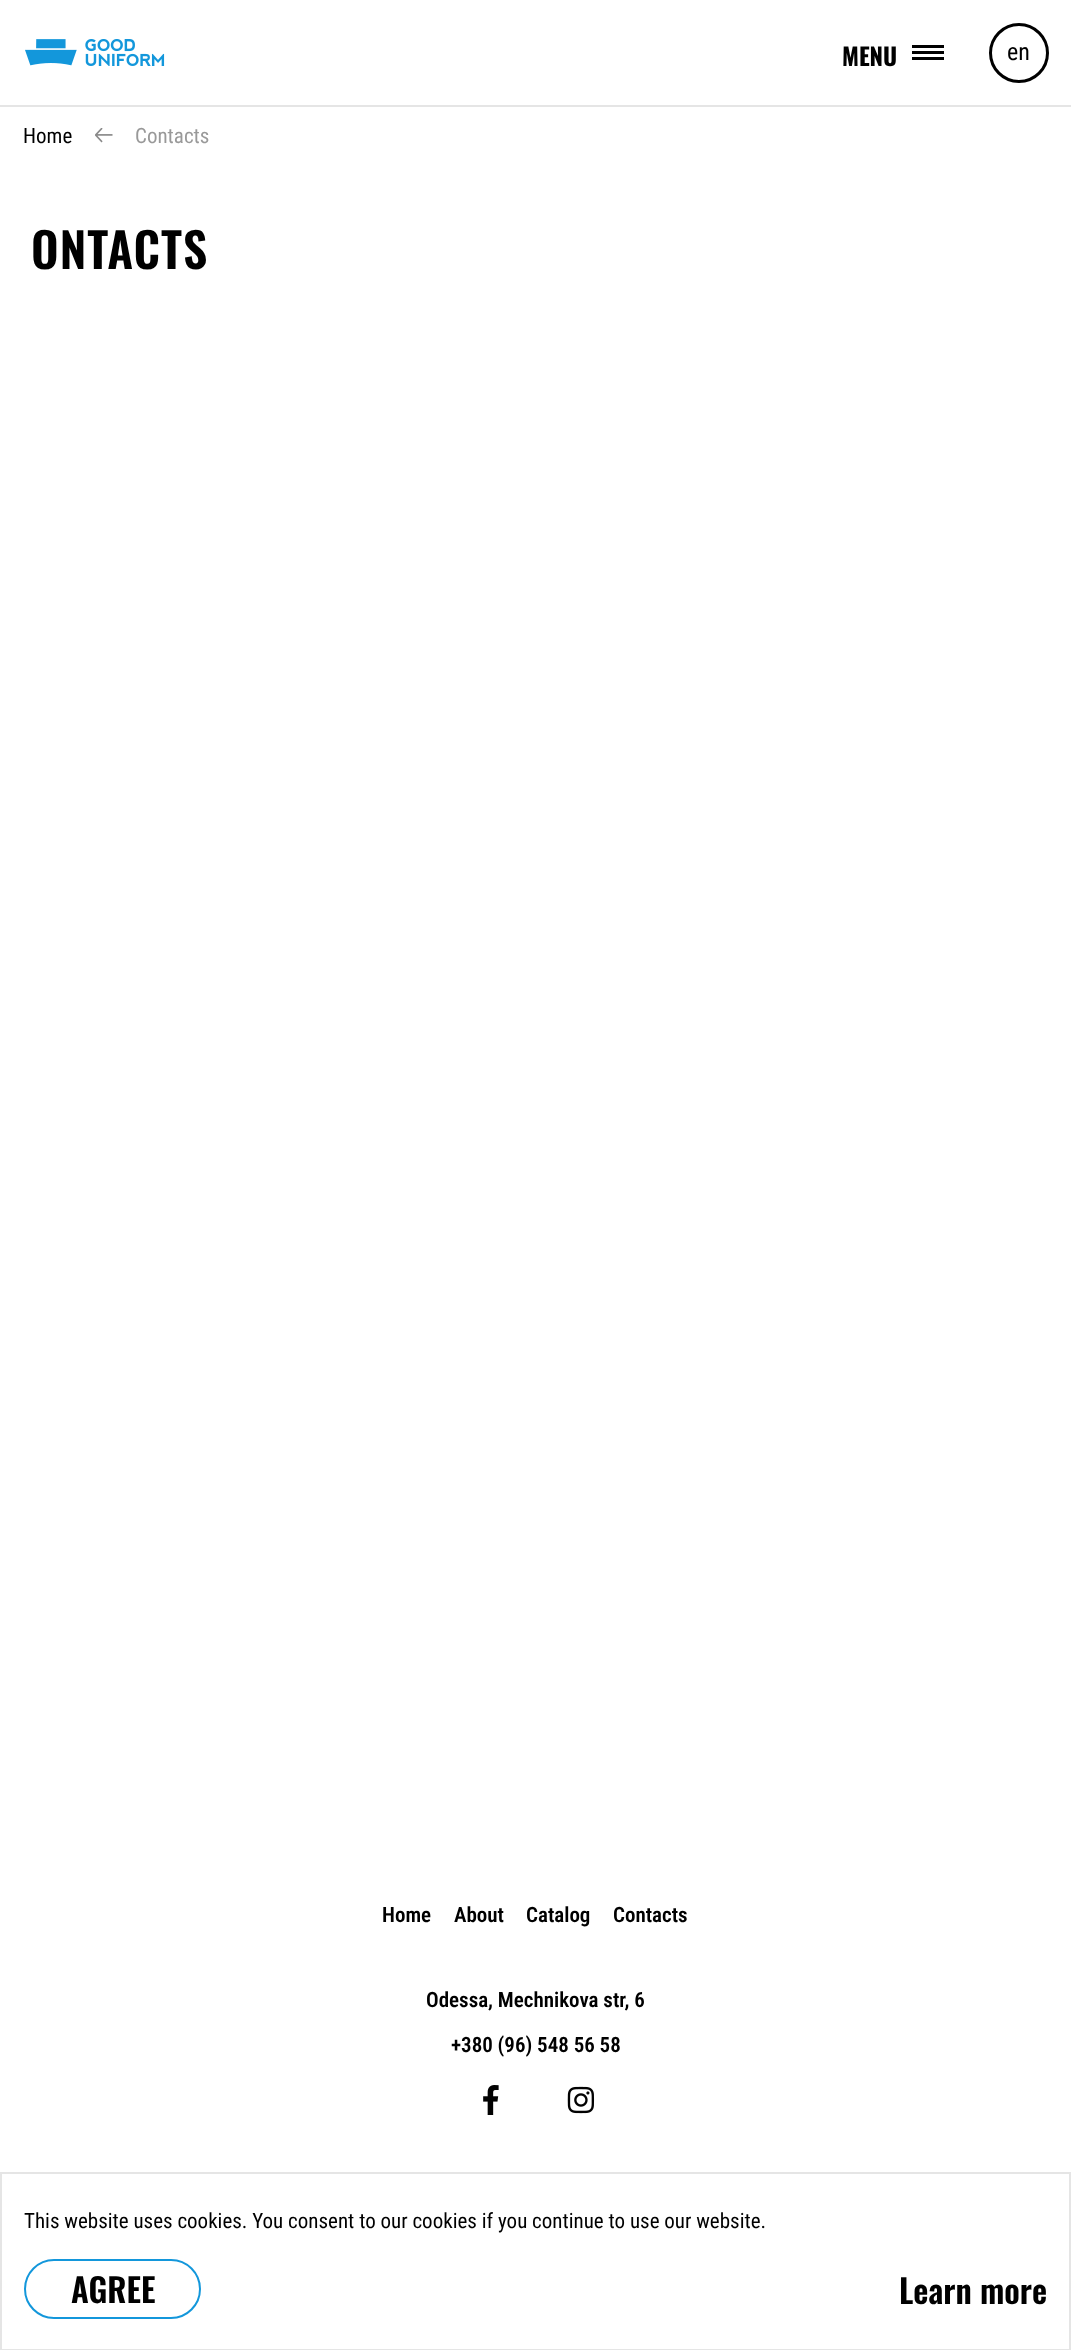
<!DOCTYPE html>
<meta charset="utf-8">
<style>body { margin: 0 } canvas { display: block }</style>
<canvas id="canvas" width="1071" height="2350"></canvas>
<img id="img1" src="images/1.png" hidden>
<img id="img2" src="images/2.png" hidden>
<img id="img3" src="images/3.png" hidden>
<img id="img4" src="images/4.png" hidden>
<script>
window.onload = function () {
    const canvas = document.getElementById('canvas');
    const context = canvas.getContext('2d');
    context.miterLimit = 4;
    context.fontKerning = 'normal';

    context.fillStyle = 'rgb(255, 255, 255)';
    context.fillRect(0, 0, 1071, 2350);
    context.fillStyle = 'rgb(229, 229, 229)';
    context.fillRect(0, 105, 1071, 2);
    context.drawImage(document.getElementById('img1'), 25, 39, 140, 27);
    context.fillStyle = 'rgb(0, 0, 0)';
    context.fillRect(912, 45, 32, 3);
    context.fillRect(912, 51, 32, 3);
    context.fillRect(912, 57, 32, 3);
    context.beginPath();
    context.arc(1019, 53, 28.5, 0, 2 * Math.PI);
    context.strokeStyle = 'rgb(0, 0, 0)';
    context.lineWidth = 3;
    context.stroke();
    context.drawImage(document.getElementById('img2'), 95, 128, 18, 15);
    context.drawImage(document.getElementById('img3'), 483, 2085, 16, 30);
    context.drawImage(document.getElementById('img4'), 567, 2086, 28, 28);
    context.strokeStyle = 'rgb(229, 229, 229)';
    context.lineWidth = 2;
    context.strokeRect(1, 2173, 1069, 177);
    context.beginPath();
    context.roundRect(25, 2260, 175, 58, 29);
    context.strokeStyle = 'rgb(19, 151, 219)';
    context.stroke();
    context.font = 'bold 24px Oswald';
    context.fillText('MENU', 842, 66);
    context.font = '24px Roboto Condensed';
    context.fillText('en', 1007, 60);
    context.font = '21px Roboto Condensed';
    context.fillText('Home', 23, 143);
    context.fillStyle = 'rgb(153, 153, 153)';
    context.fillText('Contacts', 135, 143);
    context.letterSpacing = '1px';
    context.font = '600 48px Oswald';
    context.fillStyle = 'rgb(0, 0, 0)';
    context.fillText('ONTACTS', 31, 269);
    context.letterSpacing = '0px';
    context.font = '600 21px Roboto Condensed';
    context.fillText('Home', 382, 1922);
    context.fillText('About', 454, 1922);
    context.fillText('Catalog', 526, 1922);
    context.fillText('Contacts', 613, 1922);
    context.fillText('Odessa, Mechnikova str, 6', 426, 2007);
    context.fillText('+380 (96) 548 56 58', 451, 2052);
    context.font = '21px Roboto Condensed';
    context.fillText('This website uses cookies. You consent to our cookies if you continue to use our website.', 24, 2228);
    context.font = '600 33px Oswald';
    context.fillText('AGREE', 71, 2303);
    context.fillText('Learn more', 899, 2304);
};
</script>
